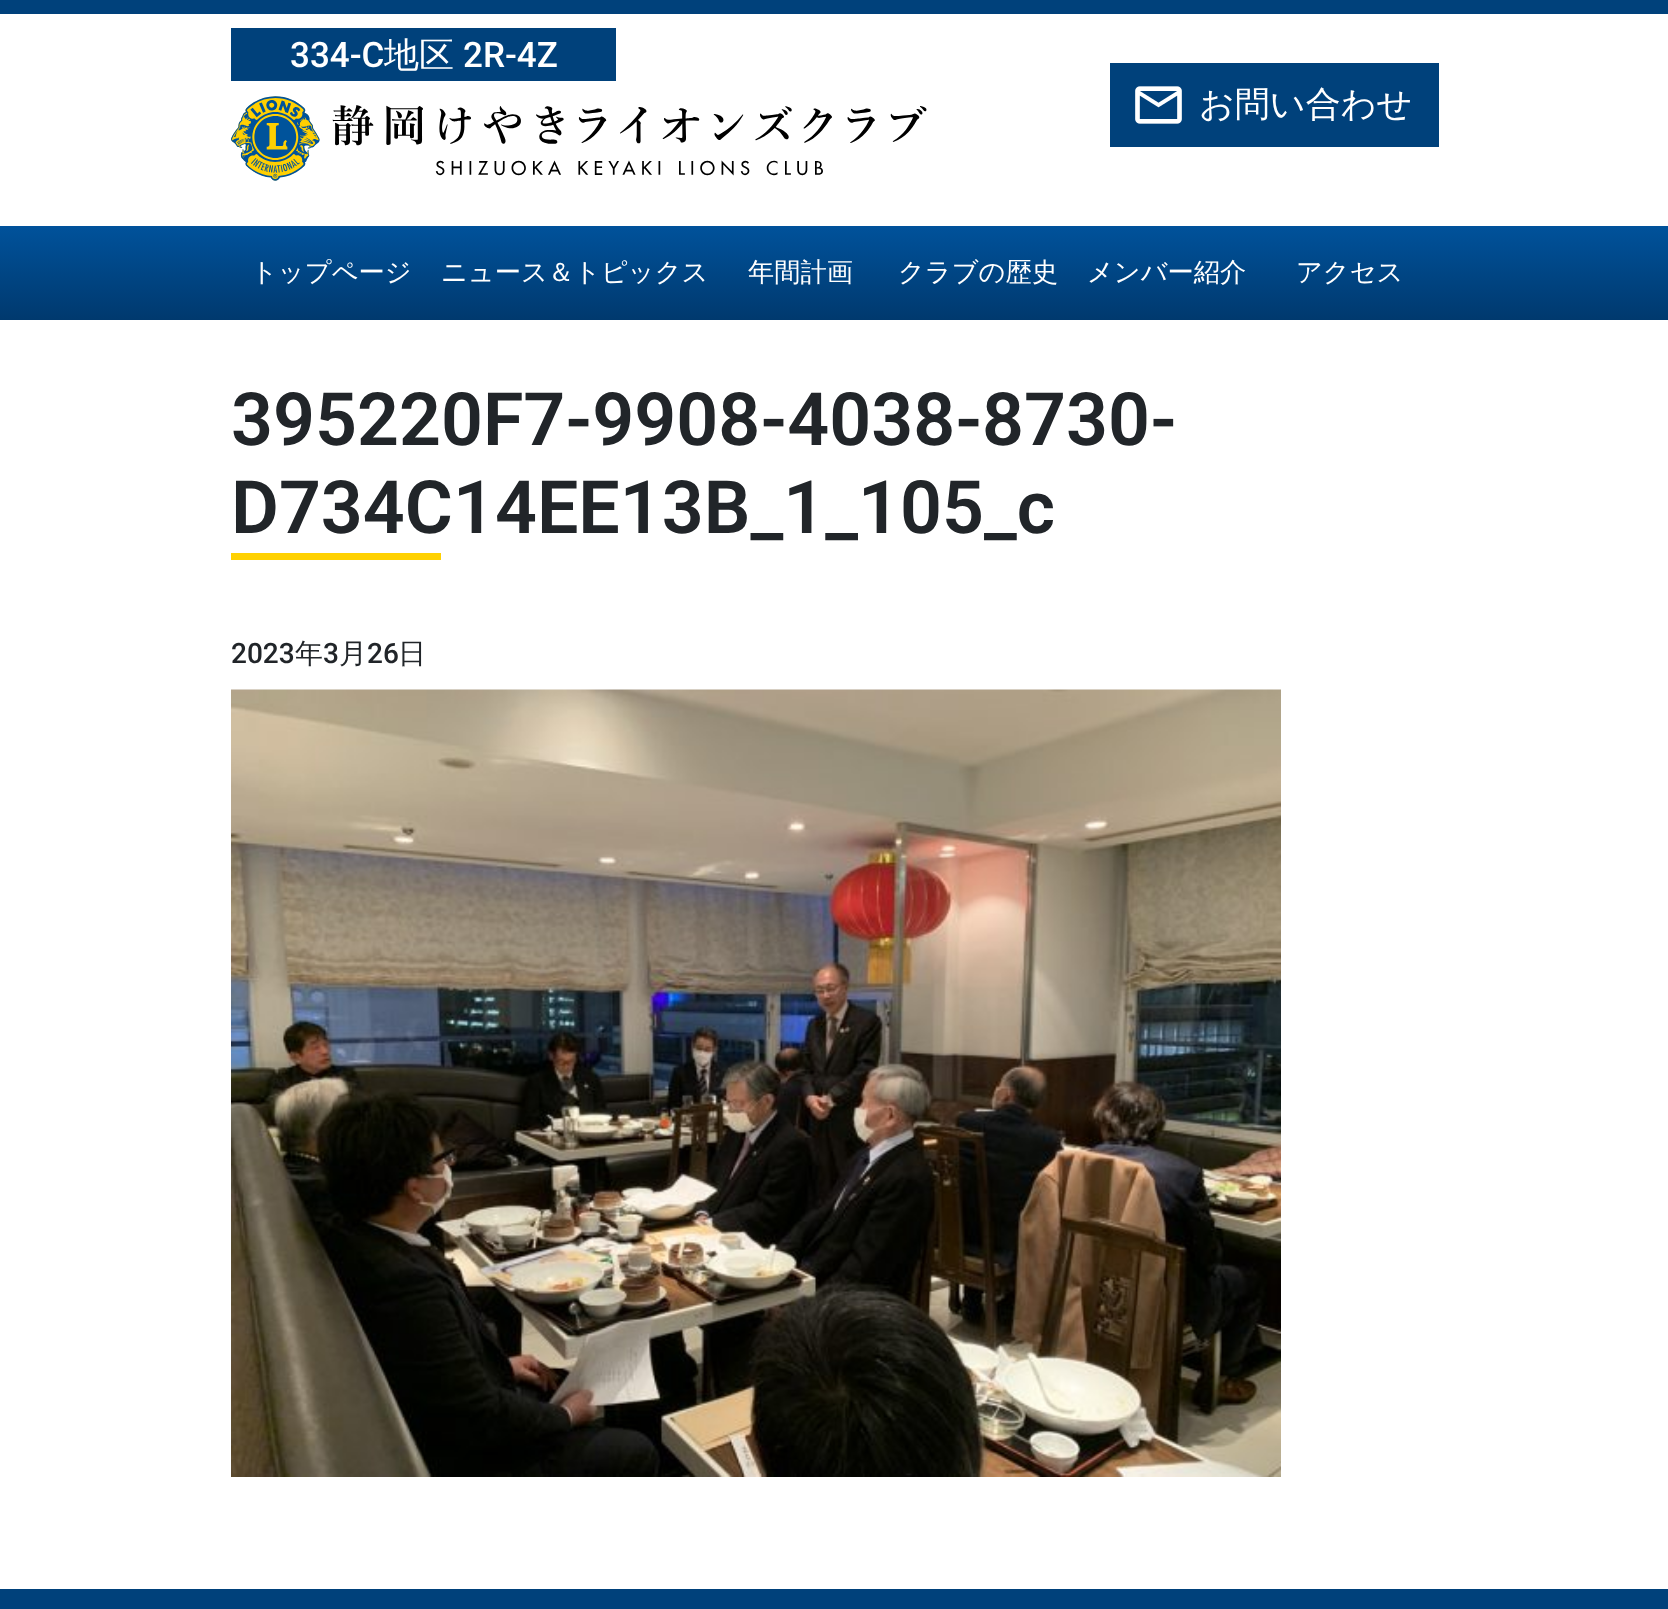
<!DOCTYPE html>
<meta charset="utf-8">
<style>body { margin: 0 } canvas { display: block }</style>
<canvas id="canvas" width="1668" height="1609"></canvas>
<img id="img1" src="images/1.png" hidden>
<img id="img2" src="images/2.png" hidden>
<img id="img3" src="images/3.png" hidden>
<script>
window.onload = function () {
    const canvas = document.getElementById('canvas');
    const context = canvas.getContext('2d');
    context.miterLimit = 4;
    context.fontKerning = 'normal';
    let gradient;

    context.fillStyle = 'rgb(255, 255, 255)';
    context.fillRect(0, 0, 1668, 1609);
    context.fillStyle = 'rgb(0, 65, 123)';
    context.fillRect(0, 0, 1668, 14);
    context.fillRect(231, 28, 385, 53);
    context.drawImage(document.getElementById('img1'), 231, 96, 696, 85);
    context.fillRect(1110, 63, 329, 84);
    context.drawImage(document.getElementById('img2'), 1135, 86, 47, 38);
    gradient = context.createLinearGradient(835, 226, 835, 320);
    gradient.addColorStop(0, 'rgb(0, 82, 155)');
    gradient.addColorStop(1, 'rgb(0, 57, 110)');
    context.fillStyle = gradient;
    context.fillRect(0, 226, 1668, 94);
    context.fillStyle = 'rgb(255, 209, 1)';
    context.fillRect(231, 553, 210, 7);
    context.drawImage(document.getElementById('img3'), 231, 689, 1050, 788);
    context.fillStyle = 'rgb(0, 65, 123)';
    context.fillRect(0, 1589, 1668, 20);
    context.font = '500 35px Roboto';
    context.fillStyle = 'rgb(255, 255, 255)';
    context.fillText('334-C', 290, 67);
    context.font = '500 35px WenQuanYi Zen Hei';
    context.fillText('地区', 384, 67);
    context.font = '500 35px Roboto';
    context.fillText('2R-4Z', 463, 67);
    context.font = '500 35px WenQuanYi Zen Hei';
    context.fillText('お問い合わせ', 1199, 116);
    context.font = '500 26.25px WenQuanYi Zen Hei';
    context.fillText('トップページ', 251, 281);
    context.fillText('ニュース＆トピックス', 441, 281);
    context.fillText('年間計画', 748, 281);
    context.fillText('クラブの歴史', 898, 281);
    context.fillText('メンバー紹介', 1087, 281);
    context.fillText('アクセス', 1296, 281);
    context.font = '600 73.5px Roboto';
    context.fillStyle = 'rgb(33, 37, 41)';
    context.fillText('395220F7-9908-4038-8730-', 231, 445);
    context.fillText('D734C14EE13B_1_105_c', 231, 533);
    context.font = '500 28px Roboto';
    context.fillText('2023', 231, 663);
    context.font = '500 28px WenQuanYi Zen Hei';
    context.fillText('年', 295, 663);
    context.font = '500 28px Roboto';
    context.fillText('3', 323, 663);
    context.font = '500 28px WenQuanYi Zen Hei';
    context.fillText('月', 339, 663);
    context.font = '500 28px Roboto';
    context.fillText('26', 367, 663);
    context.font = '500 28px WenQuanYi Zen Hei';
    context.fillText('日', 398, 663);
};
</script>
